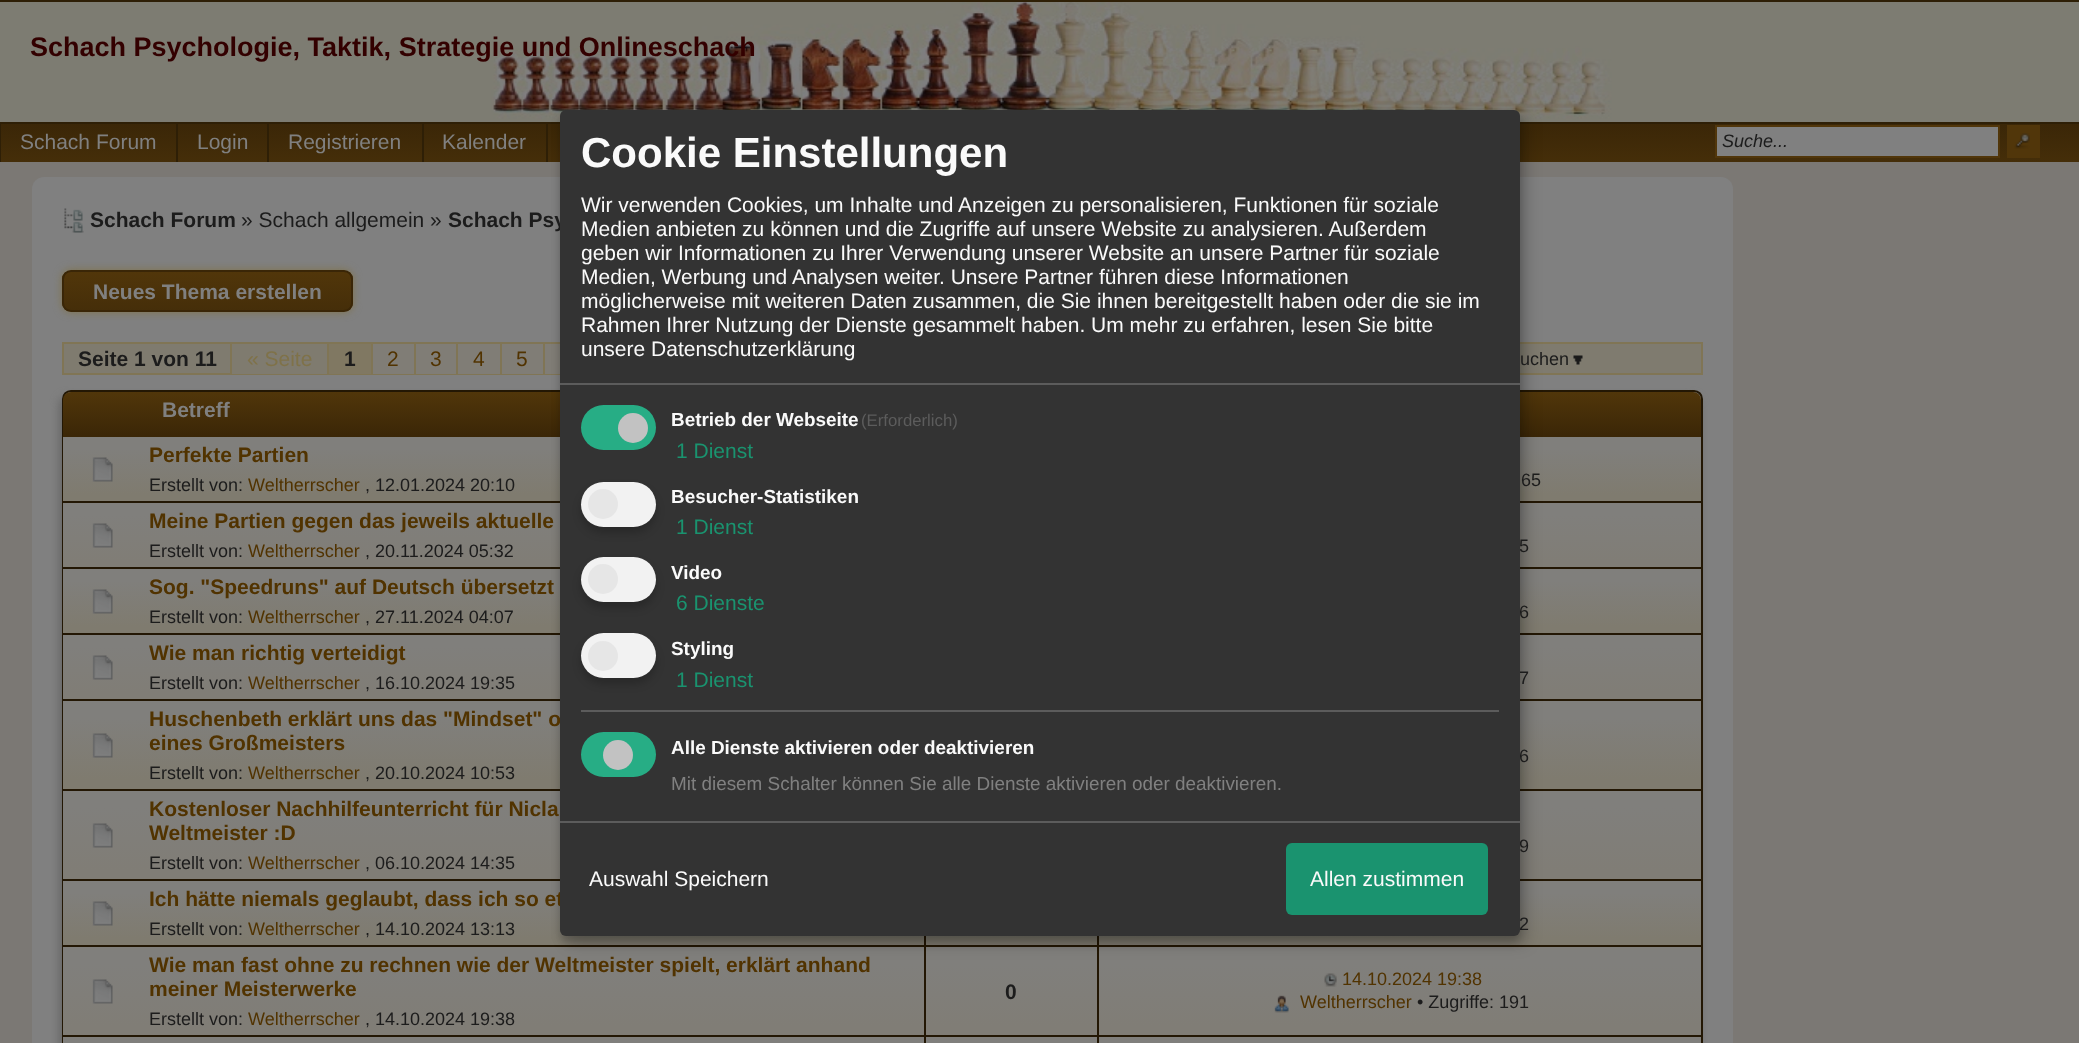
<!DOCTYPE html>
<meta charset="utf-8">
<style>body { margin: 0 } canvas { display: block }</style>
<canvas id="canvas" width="2079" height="1043"></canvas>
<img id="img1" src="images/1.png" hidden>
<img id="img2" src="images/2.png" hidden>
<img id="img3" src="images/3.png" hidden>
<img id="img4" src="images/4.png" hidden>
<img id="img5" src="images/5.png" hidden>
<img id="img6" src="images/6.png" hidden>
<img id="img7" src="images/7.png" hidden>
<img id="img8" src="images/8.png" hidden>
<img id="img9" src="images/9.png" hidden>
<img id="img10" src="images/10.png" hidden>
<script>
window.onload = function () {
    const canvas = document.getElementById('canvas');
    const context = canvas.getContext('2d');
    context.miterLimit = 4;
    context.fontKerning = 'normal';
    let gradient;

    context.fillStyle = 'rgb(123, 120, 116)';
    context.fillRect(0, 0, 2079, 1043);
    context.fillStyle = 'rgb(46, 31, 6)';
    context.fillRect(0, 0, 2079, 2);
    context.drawImage(document.getElementById('img1'), 0, 2, 2079, 120);
    gradient = context.createLinearGradient(0, 122, 0, 162);
    gradient.addColorStop(0, 'rgb(58, 38, 7)');
    gradient.addColorStop(1, 'rgb(69, 46, 9)');
    context.fillStyle = gradient;
    context.fillRect(1, 124, 2078, 38);
    context.fillStyle = 'rgb(46, 31, 6)';
    context.fillRect(0, 122, 2079, 2);
    context.fillRect(0, 122, 1, 40);
    context.fillRect(176, 122, 2, 40);
    context.fillRect(267, 122, 2, 40);
    context.fillRect(422, 122, 2, 40);
    context.fillRect(546, 122, 2, 40);
    context.fillStyle = 'rgb(128, 128, 128)';
    context.beginPath();
    context.rect(1716, 126, 283, 31);
    context.fill();
    context.strokeStyle = 'rgb(81, 54, 10)';
    context.lineWidth = 2;
    context.stroke();
    context.fillStyle = 'rgb(81, 54, 10)';
    context.fillRect(2007, 125, 33, 33);
    context.drawImage(document.getElementById('img2'), 2014, 133, 16, 16);
    context.fillStyle = 'rgb(128, 128, 128)';
    context.beginPath();
    context.roundRect(32, 177, 1701, 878, 12);
    context.fill();
    context.fillStyle = 'rgb(127, 123, 111)';
    context.fillRect(64, 344, 166, 29);
    context.strokeStyle = 'rgb(128, 117, 85)';
    context.strokeRect(63, 343, 671, 31);
    context.fillStyle = 'rgb(128, 125, 118)';
    context.fillRect(545, 344, 15, 30);
    context.fillStyle = 'rgb(128, 117, 85)';
    context.fillRect(543, 344, 2, 30);
    context.fillStyle = 'rgb(127, 123, 111)';
    context.fillRect(1520, 344, 181, 29);
    context.strokeRect(798, 343, 904, 31);
    context.fillStyle = 'rgb(102, 102, 102)';
    context.filter = 'blur(4.5px)';
    context.beginPath();
    context.roundRect(59, 396, 1641, 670, 9);
    context.fill();
    context.filter = 'none';
    context.beginPath();
    context.moveTo(71, 391);
    context.lineTo(1694, 391);
    context.bezierCurveTo(1698.5, 391, 1702, 394.5, 1702, 399);
    context.lineTo(1702, 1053);
    context.lineTo(63, 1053);
    context.lineTo(63, 399);
    context.bezierCurveTo(63, 394.5, 66.5, 391, 71, 391);
    context.closePath();
    context.strokeStyle = 'rgb(35, 23, 4)';
    context.stroke();
    gradient = context.createLinearGradient(63, 392, 63, 437);
    gradient.addColorStop(0, 'rgb(81, 54, 10)');
    gradient.addColorStop(1, 'rgb(58, 38, 7)');
    context.fillStyle = gradient;
    context.beginPath();
    context.roundRect(63, 392, 1638, 45, [8, 8, 0, 0]);
    context.fill();
    gradient = context.createLinearGradient(309, 495, 309, 449);
    gradient.addColorStop(0, 'rgb(127, 123, 111)');
    gradient.addColorStop(1, 'rgb(128, 127, 124)');
    context.fillStyle = gradient;
    context.fillRect(63, 437, 1638, 64);
    context.fillStyle = 'rgb(35, 23, 4)';
    context.fillRect(63, 501, 1638, 2);
    gradient = context.createLinearGradient(309, 561, 309, 515);
    gradient.addColorStop(0, 'rgb(128, 125, 118)');
    gradient.addColorStop(1, 'rgb(128, 127, 124)');
    context.fillStyle = gradient;
    context.fillRect(63, 503, 1638, 64);
    context.fillStyle = 'rgb(35, 23, 4)';
    context.fillRect(63, 567, 1638, 2);
    gradient = context.createLinearGradient(309, 627, 309, 581);
    gradient.addColorStop(0, 'rgb(127, 123, 111)');
    gradient.addColorStop(1, 'rgb(128, 127, 124)');
    context.fillStyle = gradient;
    context.fillRect(63, 569, 1638, 64);
    context.fillStyle = 'rgb(35, 23, 4)';
    context.fillRect(63, 633, 1638, 2);
    gradient = context.createLinearGradient(309, 693, 309, 647);
    gradient.addColorStop(0, 'rgb(128, 125, 118)');
    gradient.addColorStop(1, 'rgb(128, 127, 124)');
    context.fillStyle = gradient;
    context.fillRect(63, 635, 1638, 64);
    context.fillStyle = 'rgb(35, 23, 4)';
    context.fillRect(63, 699, 1638, 2);
    gradient = context.createLinearGradient(309, 780, 309, 718);
    gradient.addColorStop(0, 'rgb(127, 123, 111)');
    gradient.addColorStop(1, 'rgb(128, 127, 124)');
    context.fillStyle = gradient;
    context.fillRect(63, 701, 1638, 88);
    context.fillStyle = 'rgb(35, 23, 4)';
    context.fillRect(63, 789, 1638, 2);
    gradient = context.createLinearGradient(309, 870, 309, 808);
    gradient.addColorStop(0, 'rgb(128, 125, 118)');
    gradient.addColorStop(1, 'rgb(128, 127, 124)');
    context.fillStyle = gradient;
    context.fillRect(63, 791, 1638, 88);
    context.fillStyle = 'rgb(35, 23, 4)';
    context.fillRect(63, 879, 1638, 2);
    gradient = context.createLinearGradient(309, 939, 309, 893);
    gradient.addColorStop(0, 'rgb(127, 123, 111)');
    gradient.addColorStop(1, 'rgb(128, 127, 124)');
    context.fillStyle = gradient;
    context.fillRect(63, 881, 1638, 64);
    context.fillStyle = 'rgb(35, 23, 4)';
    context.fillRect(63, 945, 1638, 2);
    context.fillRect(924, 936, 2, 11);
    context.fillRect(1097, 936, 2, 11);
    gradient = context.createLinearGradient(309, 1026, 309, 964);
    gradient.addColorStop(0, 'rgb(128, 125, 118)');
    gradient.addColorStop(1, 'rgb(128, 127, 124)');
    context.fillStyle = gradient;
    context.fillRect(63, 947, 1638, 88);
    context.fillStyle = 'rgb(128, 127, 124)';
    context.fillRect(63, 1037, 1638, 6);
    context.fillStyle = 'rgb(35, 23, 4)';
    context.fillRect(63, 1035, 1638, 2);
    context.fillRect(924, 947, 2, 96);
    context.fillRect(1097, 947, 2, 96);
    context.fillStyle = 'rgba(0, 0, 0, 0.19)';
    context.filter = 'blur(7.5px)';
    context.beginPath();
    context.roundRect(567, 117, 960, 827, 6);
    context.fill();
    context.filter = 'none';
    context.fillStyle = 'rgba(0, 0, 0, 0.2)';
    context.filter = 'blur(4.5px)';
    context.beginPath();
    context.roundRect(560, 116, 960, 826, 6);
    context.fill();
    context.filter = 'none';
    context.drawImage(document.getElementById('img3'), 64, 208, 20, 25);
    context.fillStyle = 'rgb(127, 114, 73)';
    context.filter = 'blur(4.5px)';
    context.beginPath();
    context.roundRect(62, 270, 291, 42, 9);
    context.fill();
    context.filter = 'none';
    context.save();
    context.beginPath();
    context.roundRect(62, 270, 291, 42, 9);
    context.clip();
    gradient = context.createLinearGradient(63, 272, 63, 311);
    gradient.addColorStop(0, 'rgb(81, 54, 10)');
    gradient.addColorStop(1, 'rgb(69, 46, 9)');
    context.fillStyle = gradient;
    context.fillRect(62, 272, 291, 39);
    context.restore();
    context.beginPath();
    context.roundRect(63, 271, 289, 40, 8);
    context.strokeStyle = 'rgb(58, 38, 7)';
    context.stroke();
    context.fillStyle = 'rgb(127, 123, 111)';
    context.fillRect(232, 344, 95, 30);
    context.fillStyle = 'rgb(128, 117, 85)';
    context.fillRect(230, 344, 2, 30);
    context.fillStyle = 'rgb(128, 120, 98)';
    context.fillRect(329, 344, 42, 30);
    context.fillStyle = 'rgb(128, 117, 85)';
    context.fillRect(327, 344, 2, 30);
    context.fillStyle = 'rgb(128, 125, 118)';
    context.fillRect(373, 344, 41, 30);
    context.fillStyle = 'rgb(128, 117, 85)';
    context.fillRect(371, 344, 2, 30);
    context.fillStyle = 'rgb(128, 125, 118)';
    context.fillRect(416, 344, 40, 30);
    context.fillStyle = 'rgb(128, 117, 85)';
    context.fillRect(414, 344, 2, 30);
    context.fillStyle = 'rgb(128, 125, 118)';
    context.fillRect(458, 344, 42, 30);
    context.fillStyle = 'rgb(128, 117, 85)';
    context.fillRect(456, 344, 2, 30);
    context.fillStyle = 'rgb(128, 125, 118)';
    context.fillRect(502, 344, 41, 30);
    context.fillStyle = 'rgb(128, 117, 85)';
    context.fillRect(500, 344, 2, 30);
    context.drawImage(document.getElementById('img4'), 1573, 355, 10, 10);
    context.drawImage(document.getElementById('img5'), 92, 457, 21, 25);
    context.drawImage(document.getElementById('img6'), 92, 523, 21, 25);
    context.drawImage(document.getElementById('img5'), 92, 589, 21, 25);
    context.drawImage(document.getElementById('img6'), 92, 655, 21, 25);
    context.drawImage(document.getElementById('img7'), 92, 733, 21, 25);
    context.drawImage(document.getElementById('img8'), 92, 823, 21, 25);
    context.drawImage(document.getElementById('img5'), 92, 901, 21, 25);
    context.drawImage(document.getElementById('img8'), 92, 979, 21, 25);
    context.drawImage(document.getElementById('img9'), 1324, 973, 13, 14);
    context.drawImage(document.getElementById('img10'), 1274, 995, 15, 18);
    context.font = 'bold 27px Liberation Sans';
    context.fillStyle = 'rgb(51, 0, 0)';
    context.fillText('Schach Psychologie, Taktik, Strategie und Onlineschach', 30, 56);
    context.font = '21px Liberation Sans';
    context.fillStyle = 'rgb(128, 128, 128)';
    context.fillText('Schach Forum', 20, 149);
    context.fillText('Login', 197, 149);
    context.fillText('Registrieren', 288, 149);
    context.fillText('Kalender', 442, 149);
    context.font = 'italic 18px Liberation Sans';
    context.fillStyle = 'rgb(28, 28, 28)';
    context.fillText('Suche...', 1722, 147);
    context.font = 'bold 21px Liberation Sans';
    context.fillText('Schach Forum', 90, 227);
    context.font = '21px Liberation Sans';
    context.fillText('» Schach allgemein »', 241, 227);
    context.font = 'bold 21px Liberation Sans';
    context.fillText('Schach Psy', 448, 227);
    context.fillStyle = 'rgb(128, 128, 128)';
    context.fillText('Neues Thema erstellen', 93, 299);
    context.fillStyle = 'rgb(28, 28, 28)';
    context.fillText('Seite 1 von 11', 78, 366);
    context.font = '21px Liberation Sans';
    context.fillStyle = 'rgb(127, 114, 73)';
    context.fillText('« Seite', 247, 366);
    context.font = 'bold 21px Liberation Sans';
    context.fillStyle = 'rgb(28, 28, 28)';
    context.fillText('1', 344, 366);
    context.font = '21px Liberation Sans';
    context.fillStyle = 'rgb(81, 51, 0)';
    context.fillText('2', 387, 366);
    context.fillText('3', 430, 366);
    context.fillText('4', 473, 366);
    context.fillText('5', 516, 366);
    context.font = '18px Liberation Sans';
    context.fillStyle = 'rgb(28, 28, 28)';
    context.fillText('uchen', 1520, 365);
    context.font = 'bold 21px Liberation Sans';
    context.fillStyle = 'rgb(128, 128, 128)';
    context.fillText('Betreff', 162, 417);
    context.fillStyle = 'rgb(81, 51, 0)';
    context.fillText('Perfekte Partien', 149, 462);
    context.font = '18px Liberation Sans';
    context.fillStyle = 'rgb(28, 28, 28)';
    context.fillText('Erstellt von:', 149, 491);
    context.fillStyle = 'rgb(81, 51, 0)';
    context.fillText('Weltherrscher', 248, 491);
    context.fillStyle = 'rgb(28, 28, 28)';
    context.fillText(', 12.01.2024 20:10', 365, 491);
    context.fillText('65', 1521, 486);
    context.font = 'bold 21px Liberation Sans';
    context.fillStyle = 'rgb(81, 51, 0)';
    context.fillText('Meine Partien gegen das jeweils aktuelle', 149, 528);
    context.font = '18px Liberation Sans';
    context.fillStyle = 'rgb(28, 28, 28)';
    context.fillText('Erstellt von:', 149, 557);
    context.fillStyle = 'rgb(81, 51, 0)';
    context.fillText('Weltherrscher', 248, 557);
    context.fillStyle = 'rgb(28, 28, 28)';
    context.fillText(', 20.11.2024 05:32', 365, 557);
    context.fillText('5', 1519, 552);
    context.font = 'bold 21px Liberation Sans';
    context.fillStyle = 'rgb(81, 51, 0)';
    context.fillText('Sog. "Speedruns" auf Deutsch übersetzt', 149, 594);
    context.font = '18px Liberation Sans';
    context.fillStyle = 'rgb(28, 28, 28)';
    context.fillText('Erstellt von:', 149, 623);
    context.fillStyle = 'rgb(81, 51, 0)';
    context.fillText('Weltherrscher', 248, 623);
    context.fillStyle = 'rgb(28, 28, 28)';
    context.fillText(', 27.11.2024 04:07', 365, 623);
    context.fillText('6', 1519, 618);
    context.font = 'bold 21px Liberation Sans';
    context.fillStyle = 'rgb(81, 51, 0)';
    context.fillText('Wie man richtig verteidigt', 149, 660);
    context.font = '18px Liberation Sans';
    context.fillStyle = 'rgb(28, 28, 28)';
    context.fillText('Erstellt von:', 149, 689);
    context.fillStyle = 'rgb(81, 51, 0)';
    context.fillText('Weltherrscher', 248, 689);
    context.fillStyle = 'rgb(28, 28, 28)';
    context.fillText(', 16.10.2024 19:35', 365, 689);
    context.fillText('7', 1519, 684);
    context.font = 'bold 21px Liberation Sans';
    context.fillStyle = 'rgb(81, 51, 0)';
    context.fillText('Huschenbeth erklärt uns das "Mindset" o', 149, 726);
    context.fillText('eines Großmeisters', 149, 750);
    context.font = '18px Liberation Sans';
    context.fillStyle = 'rgb(28, 28, 28)';
    context.fillText('Erstellt von:', 149, 779);
    context.fillStyle = 'rgb(81, 51, 0)';
    context.fillText('Weltherrscher', 248, 779);
    context.fillStyle = 'rgb(28, 28, 28)';
    context.fillText(', 20.10.2024 10:53', 365, 779);
    context.fillText('6', 1519, 762);
    context.font = 'bold 21px Liberation Sans';
    context.fillStyle = 'rgb(81, 51, 0)';
    context.fillText('Kostenloser Nachhilfeunterricht für Nicla', 149, 816);
    context.fillText('Weltmeister :D', 149, 840);
    context.font = '18px Liberation Sans';
    context.fillStyle = 'rgb(28, 28, 28)';
    context.fillText('Erstellt von:', 149, 869);
    context.fillStyle = 'rgb(81, 51, 0)';
    context.fillText('Weltherrscher', 248, 869);
    context.fillStyle = 'rgb(28, 28, 28)';
    context.fillText(', 06.10.2024 14:35', 365, 869);
    context.fillText('9', 1519, 852);
    context.font = 'bold 21px Liberation Sans';
    context.fillStyle = 'rgb(81, 51, 0)';
    context.fillText('Ich hätte niemals geglaubt, dass ich so et', 149, 906);
    context.font = '18px Liberation Sans';
    context.fillStyle = 'rgb(28, 28, 28)';
    context.fillText('Erstellt von:', 149, 935);
    context.fillStyle = 'rgb(81, 51, 0)';
    context.fillText('Weltherrscher', 248, 935);
    context.fillStyle = 'rgb(28, 28, 28)';
    context.fillText(', 14.10.2024 13:13', 365, 935);
    context.fillText('2', 1519, 930);
    context.fillStyle = 'rgb(51, 51, 51)';
    context.beginPath();
    context.roundRect(560, 110, 960, 826, 6);
    context.fill();
    context.fillStyle = 'rgb(39, 173, 133)';
    context.beginPath();
    context.roundRect(581, 732, 75, 45, 22.5);
    context.fill();
    context.fillStyle = 'rgb(194, 194, 194)';
    context.beginPath();
    context.arc(618, 755, 15, 0, 2 * Math.PI);
    context.fill();
    context.font = '18.9px Liberation Sans';
    context.fillStyle = 'rgb(128, 128, 128)';
    context.fillText('Mit diesem Schalter können Sie alle Dienste aktivieren oder deaktivieren.', 671, 790);
    context.font = 'bold 18.9px Liberation Sans';
    context.fillStyle = 'rgb(250, 250, 250)';
    context.fillText('Alle Dienste aktivieren oder deaktivieren', 671, 754);
    context.fillStyle = 'rgb(92, 92, 92)';
    context.fillRect(581, 710, 918, 2);
    context.fillStyle = 'rgba(0, 0, 0, 0.2)';
    context.filter = 'blur(4.5px)';
    context.beginPath();
    context.roundRect(581, 639, 75, 45, 22.5);
    context.fill();
    context.filter = 'none';
    context.fillStyle = 'rgb(242, 242, 242)';
    context.beginPath();
    context.roundRect(581, 633, 75, 45, 22.5);
    context.fill();
    context.fillStyle = 'rgb(230, 230, 230)';
    context.beginPath();
    context.arc(603, 656, 15, 0, 2 * Math.PI);
    context.fill();
    context.font = '21px Liberation Sans';
    context.fillStyle = 'rgb(26, 147, 111)';
    context.fillText('1 Dienst', 676, 687);
    context.font = 'bold 18.9px Liberation Sans';
    context.fillStyle = 'rgb(250, 250, 250)';
    context.fillText('Styling', 671, 655);
    context.fillStyle = 'rgba(0, 0, 0, 0.2)';
    context.filter = 'blur(4.5px)';
    context.beginPath();
    context.roundRect(581, 563, 75, 45, 22.5);
    context.fill();
    context.filter = 'none';
    context.fillStyle = 'rgb(242, 242, 242)';
    context.beginPath();
    context.roundRect(581, 557, 75, 45, 22.5);
    context.fill();
    context.fillStyle = 'rgb(230, 230, 230)';
    context.beginPath();
    context.arc(603, 579, 15, 0, 2 * Math.PI);
    context.fill();
    context.font = '21px Liberation Sans';
    context.fillStyle = 'rgb(26, 147, 111)';
    context.fillText('6 Dienste', 676, 610);
    context.font = 'bold 18.9px Liberation Sans';
    context.fillStyle = 'rgb(250, 250, 250)';
    context.fillText('Video', 671, 579);
    context.fillStyle = 'rgba(0, 0, 0, 0.2)';
    context.filter = 'blur(4.5px)';
    context.beginPath();
    context.roundRect(581, 488, 75, 45, 22.5);
    context.fill();
    context.filter = 'none';
    context.fillStyle = 'rgb(242, 242, 242)';
    context.beginPath();
    context.roundRect(581, 482, 75, 45, 22.5);
    context.fill();
    context.fillStyle = 'rgb(230, 230, 230)';
    context.beginPath();
    context.arc(603, 504, 15, 0, 2 * Math.PI);
    context.fill();
    context.font = '21px Liberation Sans';
    context.fillStyle = 'rgb(26, 147, 111)';
    context.fillText('1 Dienst', 676, 534);
    context.font = 'bold 18.9px Liberation Sans';
    context.fillStyle = 'rgb(250, 250, 250)';
    context.fillText('Besucher-Statistiken', 671, 503);
    context.fillStyle = 'rgb(39, 173, 133)';
    context.beginPath();
    context.roundRect(581, 405, 75, 45, 22.5);
    context.fill();
    context.fillStyle = 'rgb(194, 194, 194)';
    context.beginPath();
    context.arc(633, 428, 15, 0, 2 * Math.PI);
    context.fill();
    context.font = '21px Liberation Sans';
    context.fillStyle = 'rgb(26, 147, 111)';
    context.fillText('1 Dienst', 676, 458);
    context.font = '16.75px Liberation Sans';
    context.fillStyle = 'rgb(92, 92, 92)';
    context.fillText('(Erforderlich)', 861, 426);
    context.font = 'bold 18.9px Liberation Sans';
    context.fillStyle = 'rgb(250, 250, 250)';
    context.fillText('Betrieb der Webseite', 671, 426);
    context.fillStyle = 'rgb(26, 147, 111)';
    context.beginPath();
    context.roundRect(1286, 843, 202, 72, 6);
    context.fill();
    context.font = '21px Liberation Sans';
    context.fillStyle = 'rgb(250, 250, 250)';
    context.fillText('Allen zustimmen', 1310, 886);
    context.fillText('Auswahl Speichern', 589, 886);
    context.fillText('unsere Datenschutzerklärung', 581, 356);
    context.fillText('Rahmen Ihrer Nutzung der Dienste gesammelt haben. Um mehr zu erfahren, lesen Sie bitte', 581, 332);
    context.fillText('möglicherweise mit weiteren Daten zusammen, die Sie ihnen bereitgestellt haben oder die sie im', 581, 308);
    context.fillText('Medien, Werbung und Analysen weiter. Unsere Partner führen diese Informationen', 581, 284);
    context.fillText('geben wir Informationen zu Ihrer Verwendung unserer Website an unsere Partner für soziale', 581, 260);
    context.fillText('Medien anbieten zu können und die Zugriffe auf unsere Website zu analysieren. Außerdem', 581, 236);
    context.fillText('Wir verwenden Cookies, um Inhalte und Anzeigen zu personalisieren, Funktionen für soziale', 581, 212);
    context.font = 'bold 42px Liberation Sans';
    context.fillText('Cookie Einstellungen', 581, 167);
    context.fillStyle = 'rgb(92, 92, 92)';
    context.fillRect(560, 821, 960, 2);
    context.fillRect(560, 383, 960, 2);
    context.font = 'bold 21px Liberation Sans';
    context.fillStyle = 'rgb(81, 51, 0)';
    context.fillText('Wie man fast ohne zu rechnen wie der Weltmeister spielt, erklärt anhand', 149, 972);
    context.fillText('meiner Meisterwerke', 149, 996);
    context.font = '18px Liberation Sans';
    context.fillStyle = 'rgb(28, 28, 28)';
    context.fillText('Erstellt von:', 149, 1025);
    context.fillStyle = 'rgb(81, 51, 0)';
    context.fillText('Weltherrscher', 248, 1025);
    context.fillStyle = 'rgb(28, 28, 28)';
    context.fillText(', 14.10.2024 19:38', 365, 1025);
    context.font = 'bold 21px Liberation Sans';
    context.fillText('0', 1005, 999);
    context.font = '18px Liberation Sans';
    context.fillStyle = 'rgb(81, 51, 0)';
    context.fillText('14.10.2024 19:38', 1342, 985);
    context.fillText('Weltherrscher', 1300, 1008);
    context.fillStyle = 'rgb(28, 28, 28)';
    context.fillText('• Zugriffe: 191', 1417, 1008);
};
</script>
